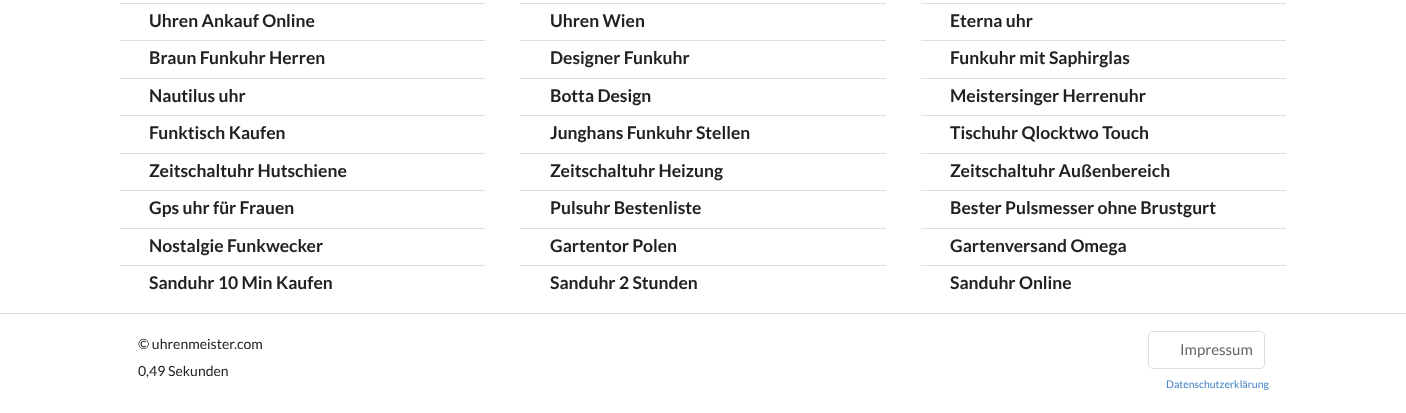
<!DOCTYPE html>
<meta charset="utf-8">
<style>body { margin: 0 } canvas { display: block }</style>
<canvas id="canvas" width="1406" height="413"></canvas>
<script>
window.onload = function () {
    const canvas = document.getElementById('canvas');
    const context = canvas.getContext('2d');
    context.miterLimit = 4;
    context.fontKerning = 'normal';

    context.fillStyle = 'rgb(255, 255, 255)';
    context.fillRect(0, 0, 1406, 413);
    context.fillStyle = 'rgb(222, 222, 222)';
    context.fillRect(0, 313, 1406, 1);
    context.fillRect(120, 3, 365, 1);
    context.fillRect(120, 40, 365, 1);
    context.fillRect(120, 78, 365, 1);
    context.fillRect(120, 115, 365, 1);
    context.fillRect(120, 153, 365, 1);
    context.fillRect(120, 190, 365, 1);
    context.fillRect(120, 228, 365, 1);
    context.fillRect(120, 265, 365, 1);
    context.fillRect(520, 3, 366, 1);
    context.fillRect(520, 40, 366, 1);
    context.fillRect(520, 78, 366, 1);
    context.fillRect(520, 115, 366, 1);
    context.fillRect(520, 153, 366, 1);
    context.fillRect(520, 190, 366, 1);
    context.fillRect(520, 228, 366, 1);
    context.fillRect(520, 265, 366, 1);
    context.fillRect(921, 3, 365, 1);
    context.fillRect(921, 40, 365, 1);
    context.fillRect(921, 78, 365, 1);
    context.fillRect(921, 115, 365, 1);
    context.fillRect(921, 153, 365, 1);
    context.fillRect(921, 190, 365, 1);
    context.fillRect(921, 228, 365, 1);
    context.fillRect(921, 265, 365, 1);
    context.beginPath();
    context.roundRect(1148.5, 331.5, 116, 37, 4.5);
    context.strokeStyle = 'rgb(222, 222, 222)';
    context.stroke();
    context.font = 'bold 17.5px Lato';
    context.fillStyle = 'rgb(33, 33, 33)';
    context.fillText('Uhren Ankauf Online', 149, 27);
    context.fillText('Braun Funkuhr Herren', 149, 64);
    context.fillText('Nautilus uhr', 149, 102);
    context.fillText('Funktisch Kaufen', 149, 139);
    context.fillText('Zeitschaltuhr Hutschiene', 149, 177);
    context.fillText('Gps uhr für Frauen', 149, 214);
    context.fillText('Nostalgie Funkwecker', 149, 252);
    context.fillText('Sanduhr 10 Min Kaufen', 149, 289);
    context.fillText('Uhren Wien', 550, 27);
    context.fillText('Designer Funkuhr', 550, 64);
    context.fillText('Botta Design', 550, 102);
    context.fillText('Junghans Funkuhr Stellen', 550, 139);
    context.fillText('Zeitschaltuhr Heizung', 550, 177);
    context.fillText('Pulsuhr Bestenliste', 550, 214);
    context.fillText('Gartentor Polen', 550, 252);
    context.fillText('Sanduhr 2 Stunden', 550, 289);
    context.fillText('Eterna uhr', 950, 27);
    context.fillText('Funkuhr mit Saphirglas', 950, 64);
    context.fillText('Meistersinger Herrenuhr', 950, 102);
    context.fillText('Tischuhr Qlocktwo Touch', 950, 139);
    context.fillText('Zeitschaltuhr Außenbereich', 950, 177);
    context.fillText('Bester Pulsmesser ohne Brustgurt', 950, 214);
    context.fillText('Gartenversand Omega', 950, 252);
    context.fillText('Sanduhr Online', 950, 289);
    context.font = '14px Lato';
    context.fillText('© uhrenmeister.com', 138, 349);
    context.fillText('0,49 Sekunden', 138, 376);
    context.font = '15px Lato';
    context.fillStyle = 'rgb(102, 102, 102)';
    context.fillText('Impressum', 1180, 355);
    context.font = '10.5px Lato';
    context.fillStyle = 'rgb(65, 131, 196)';
    context.fillText('Datenschutzerklärung', 1166, 388);
};
</script>
